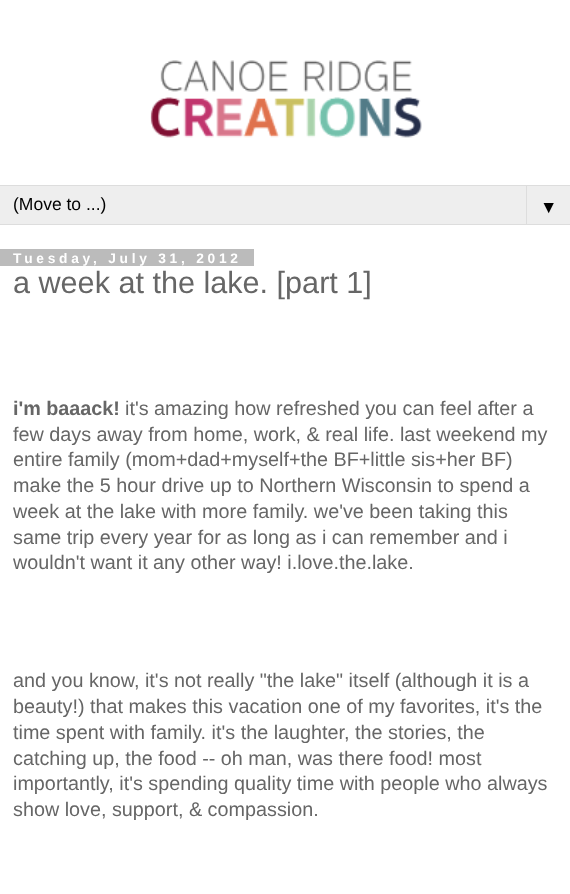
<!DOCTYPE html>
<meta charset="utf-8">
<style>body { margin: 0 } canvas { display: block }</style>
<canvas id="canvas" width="570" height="894"></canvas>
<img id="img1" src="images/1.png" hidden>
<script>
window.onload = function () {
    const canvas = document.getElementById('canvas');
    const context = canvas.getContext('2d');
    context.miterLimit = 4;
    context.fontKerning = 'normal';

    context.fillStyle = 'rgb(255, 255, 255)';
    context.fillRect(0, 0, 570, 894);
    context.drawImage(document.getElementById('img1'), 150, 60, 272, 78);
    context.fillStyle = 'rgb(238, 238, 238)';
    context.fillRect(0, 186, 570, 38);
    context.fillStyle = 'rgb(221, 221, 221)';
    context.fillRect(0, 185, 570, 1);
    context.fillRect(0, 224, 570, 1);
    context.fillRect(526, 185, 1, 40);
    context.fillStyle = 'rgb(187, 187, 187)';
    context.fillRect(0, 249, 254, 17);
    context.font = '17.5px Liberation Sans';
    context.fillStyle = 'rgb(0, 0, 0)';
    context.fillText('(Move to ...)', 13, 210);
    context.fillText('▼', 540, 213);
    context.letterSpacing = '3.75px';
    context.font = 'bold 13.75px Liberation Sans';
    context.fillStyle = 'rgb(255, 255, 255)';
    context.fillText('Tuesday, July 31, 2012', 13, 263);
    context.letterSpacing = '0px';
    context.font = '30.6px Liberation Sans';
    context.fillStyle = 'rgb(102, 102, 102)';
    context.fillText('a week at the lake. [part 1]', 13, 293);
    context.font = 'bold 19.8px Liberation Sans';
    context.fillText('i\'m baaack!', 13, 415);
    context.font = '19.8px Liberation Sans';
    context.fillText('it\'s amazing how refreshed you can feel after a', 125, 415);
    context.fillText('few days away from home, work, & real life. last weekend my', 13, 441);
    context.fillText('entire family (mom+dad+myself+the BF+little sis+her BF)', 13, 466);
    context.fillText('make the 5 hour drive up to Northern Wisconsin to spend a', 13, 492);
    context.fillText('week at the lake with more family. we\'ve been taking this', 13, 518);
    context.fillText('same trip every year for as long as i can remember and i', 13, 544);
    context.fillText('wouldn\'t want it any other way! i.love.the.lake.', 13, 569);
    context.fillText('and you know, it\'s not really "the lake" itself (although it is a', 13, 687);
    context.fillText('beauty!) that makes this vacation one of my favorites, it\'s the', 13, 713);
    context.fillText('time spent with family. it\'s the laughter, the stories, the', 13, 739);
    context.fillText('catching up, the food -- oh man, was there food! most', 13, 765);
    context.fillText('importantly, it\'s spending quality time with people who always', 13, 790);
    context.fillText('show love, support, & compassion.', 13, 816);
};
</script>
